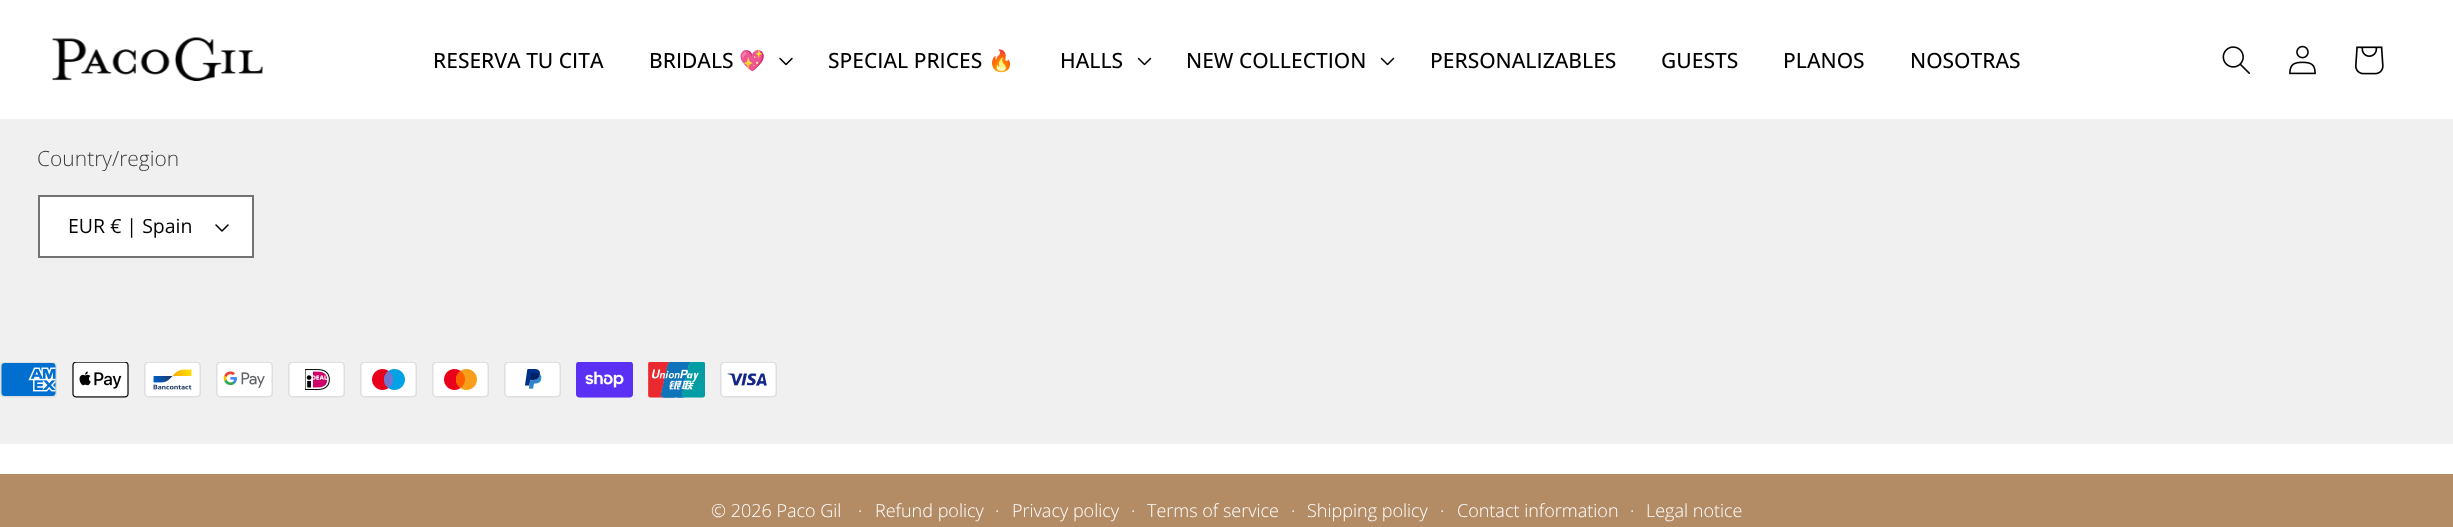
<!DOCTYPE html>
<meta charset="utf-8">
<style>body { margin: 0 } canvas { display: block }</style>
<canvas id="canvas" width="2453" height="527"></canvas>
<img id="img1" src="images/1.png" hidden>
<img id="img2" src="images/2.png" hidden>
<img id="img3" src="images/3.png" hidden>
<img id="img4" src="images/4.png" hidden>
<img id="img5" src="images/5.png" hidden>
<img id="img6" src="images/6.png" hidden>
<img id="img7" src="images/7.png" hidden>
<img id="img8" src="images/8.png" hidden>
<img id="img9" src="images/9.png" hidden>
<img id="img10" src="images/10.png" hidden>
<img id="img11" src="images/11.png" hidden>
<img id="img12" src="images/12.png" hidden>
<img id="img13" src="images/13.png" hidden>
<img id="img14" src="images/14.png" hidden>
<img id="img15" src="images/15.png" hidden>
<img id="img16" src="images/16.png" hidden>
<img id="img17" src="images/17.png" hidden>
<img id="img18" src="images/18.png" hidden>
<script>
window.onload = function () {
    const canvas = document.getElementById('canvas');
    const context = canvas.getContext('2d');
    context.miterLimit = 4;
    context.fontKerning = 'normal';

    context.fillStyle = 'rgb(255, 255, 255)';
    context.fillRect(0, 0, 2453, 527);
    context.drawImage(document.getElementById('img1'), 52, 37, 211, 44);
    context.drawImage(document.getElementById('img2'), 779, 57, 14, 9);
    context.drawImage(document.getElementById('img3'), 1137, 57, 15, 9);
    context.drawImage(document.getElementById('img3'), 1380, 57, 15, 9);
    context.drawImage(document.getElementById('img4'), 2222, 46, 28, 28);
    context.drawImage(document.getElementById('img5'), 2289, 45, 27, 30);
    context.drawImage(document.getElementById('img6'), 2355, 46, 29, 29);
    context.fillStyle = 'rgb(240, 240, 240)';
    context.fillRect(0, 119, 2453, 325);
    context.fillStyle = 'rgb(255, 255, 255)';
    context.fillRect(40, 197, 212, 59);
    context.drawImage(document.getElementById('img7'), 215, 224, 14, 8);
    context.strokeStyle = 'rgb(115, 115, 115)';
    context.lineWidth = 2;
    context.strokeRect(39, 196, 214, 61);
    context.drawImage(document.getElementById('img8'), 0, 362, 57, 36);
    context.drawImage(document.getElementById('img9'), 72, 362, 57, 36);
    context.drawImage(document.getElementById('img10'), 144, 362, 57, 36);
    context.drawImage(document.getElementById('img11'), 216, 362, 57, 36);
    context.drawImage(document.getElementById('img12'), 288, 362, 57, 36);
    context.drawImage(document.getElementById('img13'), 360, 362, 57, 36);
    context.drawImage(document.getElementById('img14'), 432, 362, 57, 36);
    context.drawImage(document.getElementById('img15'), 504, 362, 57, 36);
    context.drawImage(document.getElementById('img16'), 576, 362, 57, 36);
    context.drawImage(document.getElementById('img17'), 648, 362, 57, 36);
    context.drawImage(document.getElementById('img18'), 720, 362, 57, 36);
    context.fillStyle = 'rgb(179, 140, 102)';
    context.fillRect(0, 474, 2453, 53);
    context.font = '500 21px Open Sans';
    context.fillStyle = 'rgb(0, 0, 0)';
    context.fillText('RESERVA TU CITA', 433, 68);
    context.fillText('BRIDALS', 649, 68);
    context.font = '21px Noto Color Emoji';
    context.fillText('💖', 739, 68);
    context.font = '500 21px Open Sans';
    context.fillText('SPECIAL PRICES', 828, 68);
    context.font = '21px Noto Color Emoji';
    context.fillText('🔥', 988, 68);
    context.font = '500 21px Open Sans';
    context.fillText('HALLS', 1060, 68);
    context.fillText('NEW COLLECTION', 1186, 68);
    context.fillText('PERSONALIZABLES', 1430, 68);
    context.fillText('GUESTS', 1661, 68);
    context.fillText('PLANOS', 1783, 68);
    context.fillText('NOSOTRAS', 1910, 68);
    context.font = '300 21px Open Sans';
    context.fillStyle = 'rgb(60, 60, 60)';
    context.fillText('Country/region', 37, 166);
    context.font = '19.5px Open Sans';
    context.fillStyle = 'rgb(0, 0, 0)';
    context.fillText('EUR € | Spain', 68, 233);
    context.font = '300 18px Open Sans';
    context.fillStyle = 'rgb(255, 255, 255)';
    context.fillText('© 2026 Paco Gil', 711, 517);
    context.fillText('·', 858, 517);
    context.fillText('Refund policy', 875, 517);
    context.fillText('·', 995, 517);
    context.fillText('Privacy policy', 1012, 517);
    context.fillText('·', 1131, 517);
    context.fillText('Terms of service', 1147, 517);
    context.fillText('·', 1291, 517);
    context.fillText('Shipping policy', 1307, 517);
    context.fillText('·', 1440, 517);
    context.fillText('Contact information', 1457, 517);
    context.fillText('·', 1630, 517);
    context.fillText('Legal notice', 1646, 517);
};
</script>
